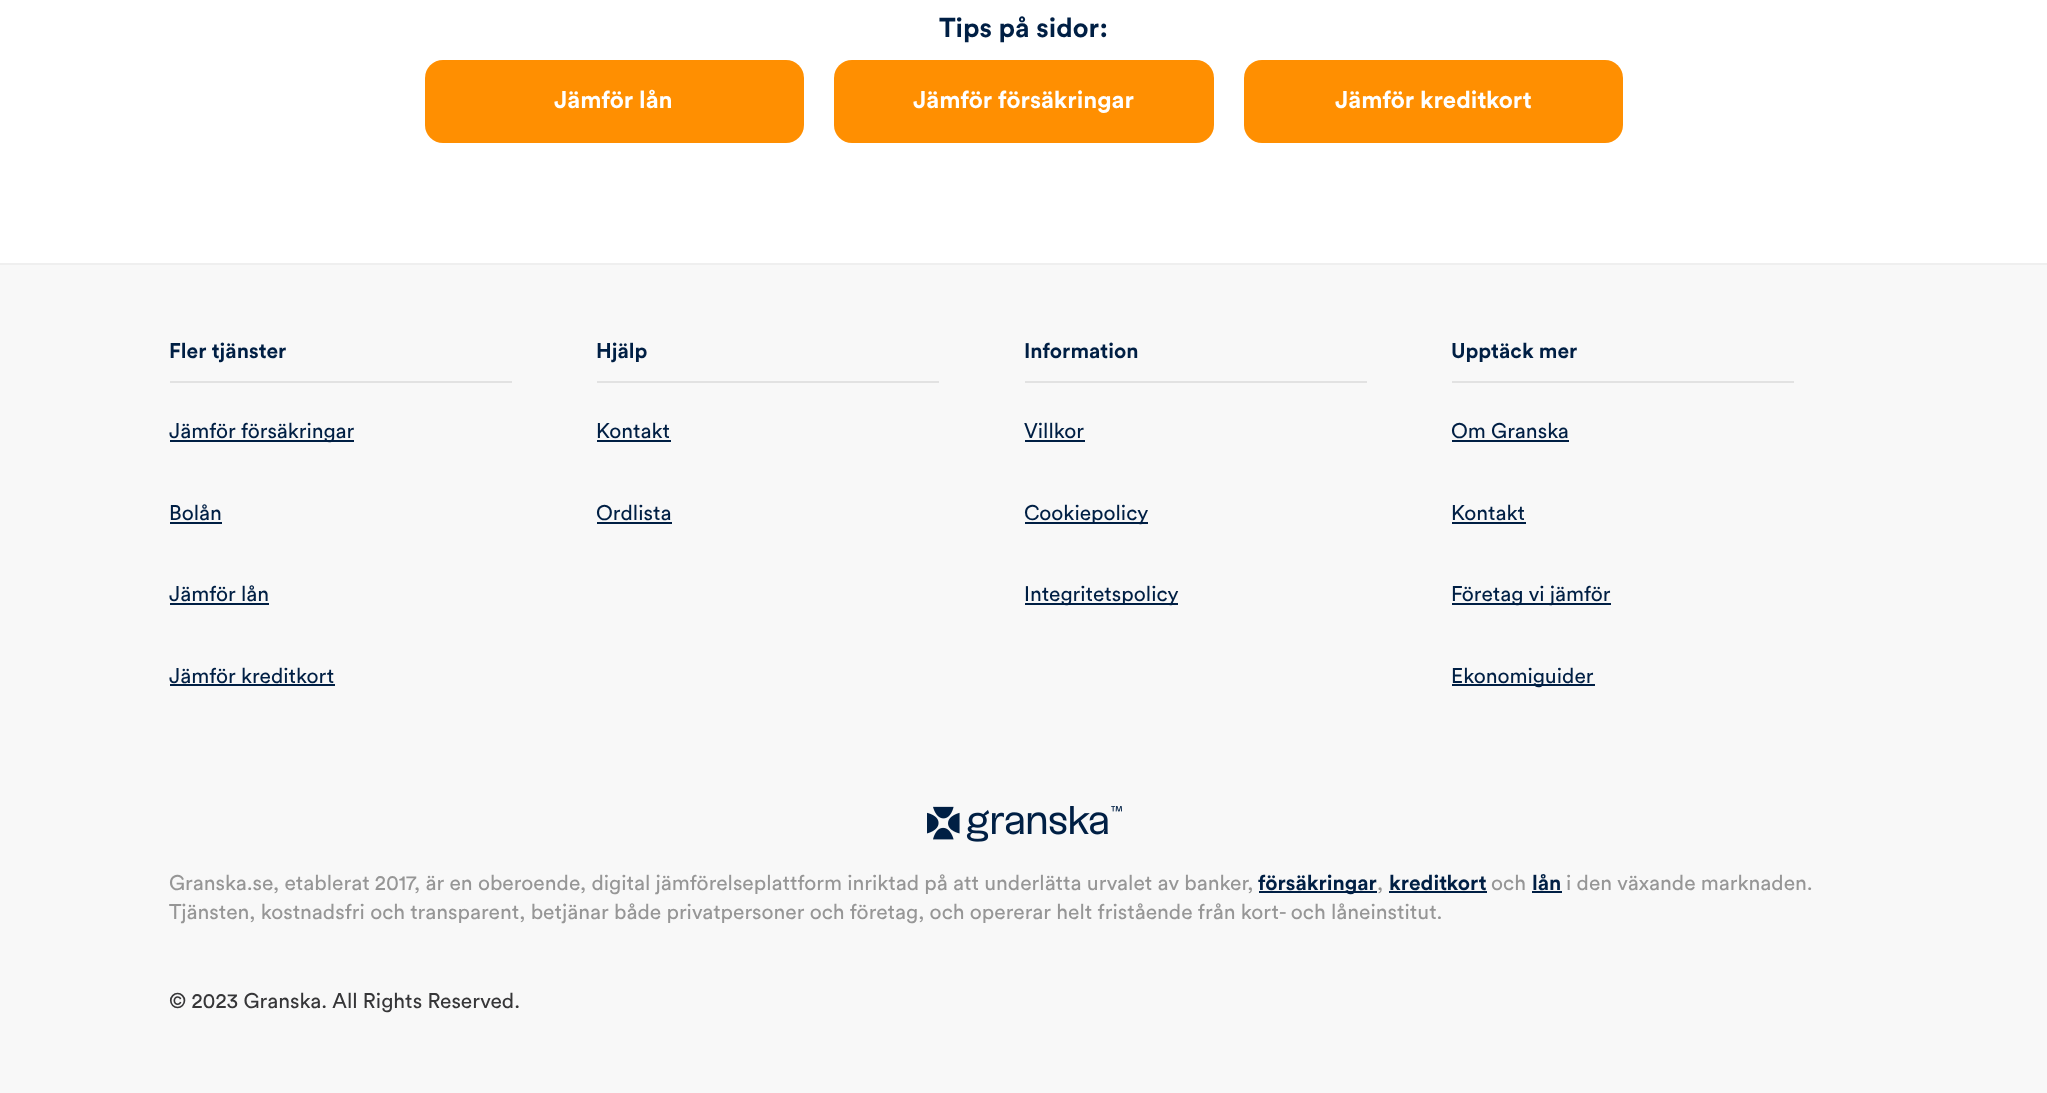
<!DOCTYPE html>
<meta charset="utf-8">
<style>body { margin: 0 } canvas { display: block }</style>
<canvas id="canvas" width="2047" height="1093"></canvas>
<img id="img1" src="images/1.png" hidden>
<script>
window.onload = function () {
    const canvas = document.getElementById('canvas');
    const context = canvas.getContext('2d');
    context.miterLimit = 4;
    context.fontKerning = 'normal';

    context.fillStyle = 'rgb(255, 255, 255)';
    context.fillRect(0, 0, 2047, 1093);
    context.fillStyle = 'rgb(255, 143, 1)';
    context.beginPath();
    context.roundRect(425, 60, 379, 83, 18);
    context.fill();
    context.beginPath();
    context.roundRect(834, 60, 380, 83, 18);
    context.fill();
    context.beginPath();
    context.roundRect(1244, 60, 379, 83, 18);
    context.fill();
    context.fillStyle = 'rgb(248, 248, 248)';
    context.fillRect(0, 265, 2047, 828);
    context.fillStyle = 'rgb(239, 239, 239)';
    context.fillRect(0, 263, 2047, 2);
    context.fillStyle = 'rgb(226, 226, 226)';
    context.fillRect(170, 381, 342, 2);
    context.fillStyle = 'rgb(0, 31, 68)';
    context.fillRect(170, 440, 184, 2);
    context.fillRect(170, 522, 52, 2);
    context.fillRect(170, 603, 99, 2);
    context.fillRect(170, 684, 165, 2);
    context.fillStyle = 'rgb(226, 226, 226)';
    context.fillRect(597, 381, 342, 2);
    context.fillStyle = 'rgb(0, 31, 68)';
    context.fillRect(597, 440, 74, 2);
    context.fillRect(597, 522, 75, 2);
    context.fillStyle = 'rgb(226, 226, 226)';
    context.fillRect(1025, 381, 342, 2);
    context.fillStyle = 'rgb(0, 31, 68)';
    context.fillRect(1025, 440, 60, 2);
    context.fillRect(1025, 522, 123, 2);
    context.fillRect(1025, 603, 153, 2);
    context.fillStyle = 'rgb(226, 226, 226)';
    context.fillRect(1452, 381, 342, 2);
    context.fillStyle = 'rgb(0, 31, 68)';
    context.fillRect(1452, 440, 117, 2);
    context.fillRect(1452, 522, 74, 2);
    context.fillRect(1452, 603, 159, 2);
    context.fillRect(1452, 684, 143, 2);
    context.drawImage(document.getElementById('img1'), 927, 806, 195, 36);
    context.fillRect(1259, 891, 118, 2);
    context.fillRect(1389, 891, 98, 2);
    context.fillRect(1532, 891, 30, 2);
    context.font = 'bold 27px Circular';
    context.fillText('Tips på sidor:', 939, 37);
    context.font = 'bold 24px Circular';
    context.fillStyle = 'rgb(255, 255, 255)';
    context.fillText('Jämför lån', 554, 108);
    context.fillText('Jämför försäkringar', 913, 108);
    context.fillText('Jämför kreditkort', 1335, 108);
    context.font = 'bold 21px Circular';
    context.fillStyle = 'rgb(0, 31, 68)';
    context.fillText('Fler tjänster', 169, 358);
    context.font = '21px Circular';
    context.fillText('Jämför försäkringar', 169, 438);
    context.fillText('Bolån', 169, 520);
    context.fillText('Jämför lån', 169, 601);
    context.fillText('Jämför kreditkort', 169, 683);
    context.font = 'bold 21px Circular';
    context.fillText('Hjälp', 596, 358);
    context.font = '21px Circular';
    context.fillText('Kontakt', 596, 438);
    context.fillText('Ordlista', 596, 520);
    context.font = 'bold 21px Circular';
    context.fillText('Information', 1024, 358);
    context.font = '21px Circular';
    context.fillText('Villkor', 1024, 438);
    context.fillText('Cookiepolicy', 1024, 520);
    context.fillText('Integritetspolicy', 1024, 601);
    context.font = 'bold 21px Circular';
    context.fillText('Upptäck mer', 1451, 358);
    context.font = '21px Circular';
    context.fillText('Om Granska', 1451, 438);
    context.fillText('Kontakt', 1451, 520);
    context.fillText('Företag vi jämför', 1451, 601);
    context.fillText('Ekonomiguider', 1451, 683);
    context.fillStyle = 'rgb(150, 150, 150)';
    context.fillText('Granska.se, etablerat 2017, är en oberoende, digital jämförelseplattform inriktad på att underlätta urvalet av banker,', 169, 890);
    context.font = 'bold 21px Circular';
    context.fillStyle = 'rgb(0, 31, 68)';
    context.fillText('försäkringar', 1258, 890);
    context.font = '21px Circular';
    context.fillStyle = 'rgb(150, 150, 150)';
    context.fillText(',', 1377, 890);
    context.font = 'bold 21px Circular';
    context.fillStyle = 'rgb(0, 31, 68)';
    context.fillText('kreditkort', 1389, 890);
    context.font = '21px Circular';
    context.fillStyle = 'rgb(150, 150, 150)';
    context.fillText('och', 1491, 890);
    context.font = 'bold 21px Circular';
    context.fillStyle = 'rgb(0, 31, 68)';
    context.fillText('lån', 1532, 890);
    context.font = '21px Circular';
    context.fillStyle = 'rgb(150, 150, 150)';
    context.fillText('i den växande marknaden.', 1566, 890);
    context.fillText('Tjänsten, kostnadsfri och transparent, betjänar både privatpersoner och företag, och opererar helt fristående från kort- och låneinstitut.', 169, 919);
    context.fillStyle = 'rgb(54, 54, 56)';
    context.fillText('© 2023 Granska. All Rights Reserved.', 169, 1008);
};
</script>
